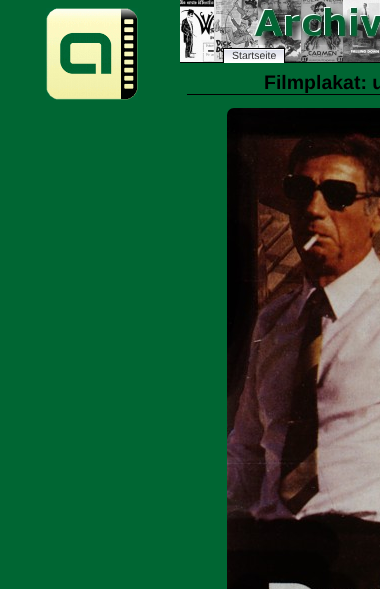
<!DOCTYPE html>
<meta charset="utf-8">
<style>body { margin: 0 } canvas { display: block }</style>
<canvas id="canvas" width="380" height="589"></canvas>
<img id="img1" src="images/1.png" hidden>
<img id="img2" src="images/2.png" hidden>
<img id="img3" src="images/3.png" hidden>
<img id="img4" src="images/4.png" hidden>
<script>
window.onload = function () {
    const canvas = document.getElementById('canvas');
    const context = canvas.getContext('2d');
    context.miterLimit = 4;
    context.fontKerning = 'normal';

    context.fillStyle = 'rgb(0, 102, 51)';
    context.fillRect(0, 0, 380, 589);
    context.drawImage(document.getElementById('img1'), 46, 8, 92, 92);
    context.fillStyle = 'rgb(0, 0, 0)';
    context.fillRect(180, 62, 200, 1);
    context.drawImage(document.getElementById('img2'), 180, 0, 200, 62);
    context.fillStyle = 'rgb(255, 255, 255)';
    context.fillRect(224, 49, 60, 14);
    context.drawImage(document.getElementById('img3'), 224, 50, 60, 11);
    context.fillStyle = 'rgb(0, 0, 0)';
    context.fillRect(223, 48, 62, 1);
    context.fillRect(284, 48, 1, 15);
    context.fillRect(223, 48, 1, 15);
    context.fillRect(187, 94, 193, 1);
    context.drawImage(document.getElementById('img4'), 227, 108, 153, 481);
    context.font = '10.5px Liberation Sans';
    context.fillStyle = 'rgb(51, 51, 51)';
    context.fillText('Startseite', 232, 59);
    context.font = 'bold 19.5px Liberation Sans';
    context.fillStyle = 'rgb(0, 0, 0)';
    context.fillText('Filmplakat: u', 264, 89);
};
</script>
